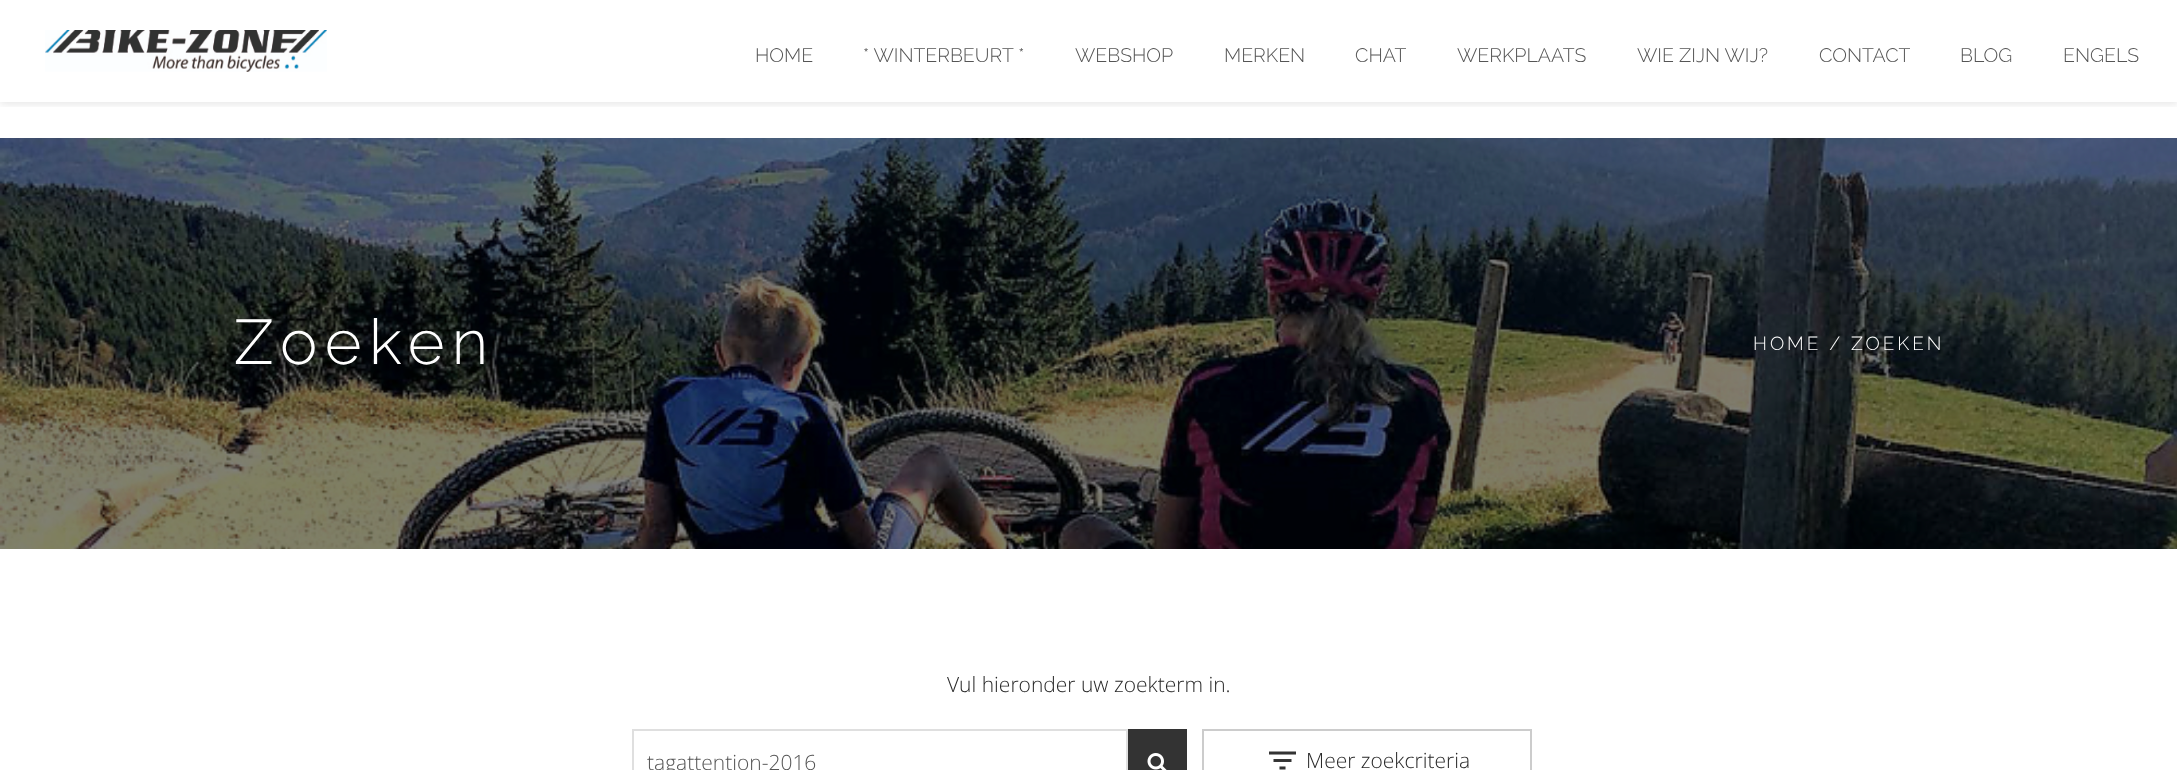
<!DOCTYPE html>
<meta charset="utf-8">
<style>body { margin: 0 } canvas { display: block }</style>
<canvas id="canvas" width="2177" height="770"></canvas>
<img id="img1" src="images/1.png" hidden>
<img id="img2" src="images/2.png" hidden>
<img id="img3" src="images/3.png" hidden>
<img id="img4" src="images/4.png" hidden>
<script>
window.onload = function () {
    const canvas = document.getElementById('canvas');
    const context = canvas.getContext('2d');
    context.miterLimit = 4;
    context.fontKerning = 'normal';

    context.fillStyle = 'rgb(255, 255, 255)';
    context.fillRect(0, 0, 2177, 770);
    context.save();
    context.beginPath();
    context.rect(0, 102, 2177, 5);
    context.clip();
    context.fillStyle = 'rgba(0, 0, 0, 0.1)';
    context.filter = 'blur(4px)';
    context.beginPath();
    context.rect(0, 2, 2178, 102);
    context.fill();
    context.filter = 'none';
    context.restore();
    context.drawImage(document.getElementById('img1'), 45, 30, 282, 42);
    context.drawImage(document.getElementById('img2'), 0, 138, 2177, 411);
    context.strokeStyle = 'rgb(223, 223, 223)';
    context.lineWidth = 2;
    context.strokeRect(633, 730, 494, 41);
    context.fillStyle = 'rgb(51, 51, 51)';
    context.fillRect(1128, 729, 59, 41);
    context.drawImage(document.getElementById('img3'), 1147, 753, 20, 17);
    context.strokeStyle = 'rgb(204, 204, 204)';
    context.strokeRect(1203, 730, 328, 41);
    context.drawImage(document.getElementById('img4'), 1269, 751, 27, 19);
    context.font = '300 19.5px Raleway';
    context.fillStyle = 'rgb(85, 85, 85)';
    context.fillText('HOME', 755, 62);
    context.fillText('* WINTERBEURT *', 863, 62);
    context.fillText('WEBSHOP', 1075, 62);
    context.fillText('MERKEN', 1224, 62);
    context.fillText('CHAT', 1355, 62);
    context.fillText('WERKPLAATS', 1457, 62);
    context.fillText('WIE ZIJN WIJ?', 1637, 62);
    context.fillText('CONTACT', 1819, 62);
    context.fillText('BLOG', 1960, 62);
    context.fillText('ENGELS', 2063, 62);
    context.letterSpacing = '7.5px';
    context.font = '300 63px Raleway';
    context.fillStyle = 'rgb(255, 255, 255)';
    context.fillText('Zoeken', 234, 364);
    context.letterSpacing = '3px';
    context.font = '300 18.9px Raleway';
    context.fillText('HOME / ZOEKEN', 1753, 350);
    context.letterSpacing = '0px';
    context.font = '300 21px Open Sans';
    context.fillStyle = 'rgb(41, 41, 41)';
    context.fillText('Vul hieronder uw zoekterm in.', 947, 692);
    context.fillStyle = 'rgb(85, 85, 85)';
    context.fillText('tagattention-2016', 647, 770);
    context.fillStyle = 'rgb(41, 41, 41)';
    context.fillText('Meer zoekcriteria', 1306, 768);
};
</script>
